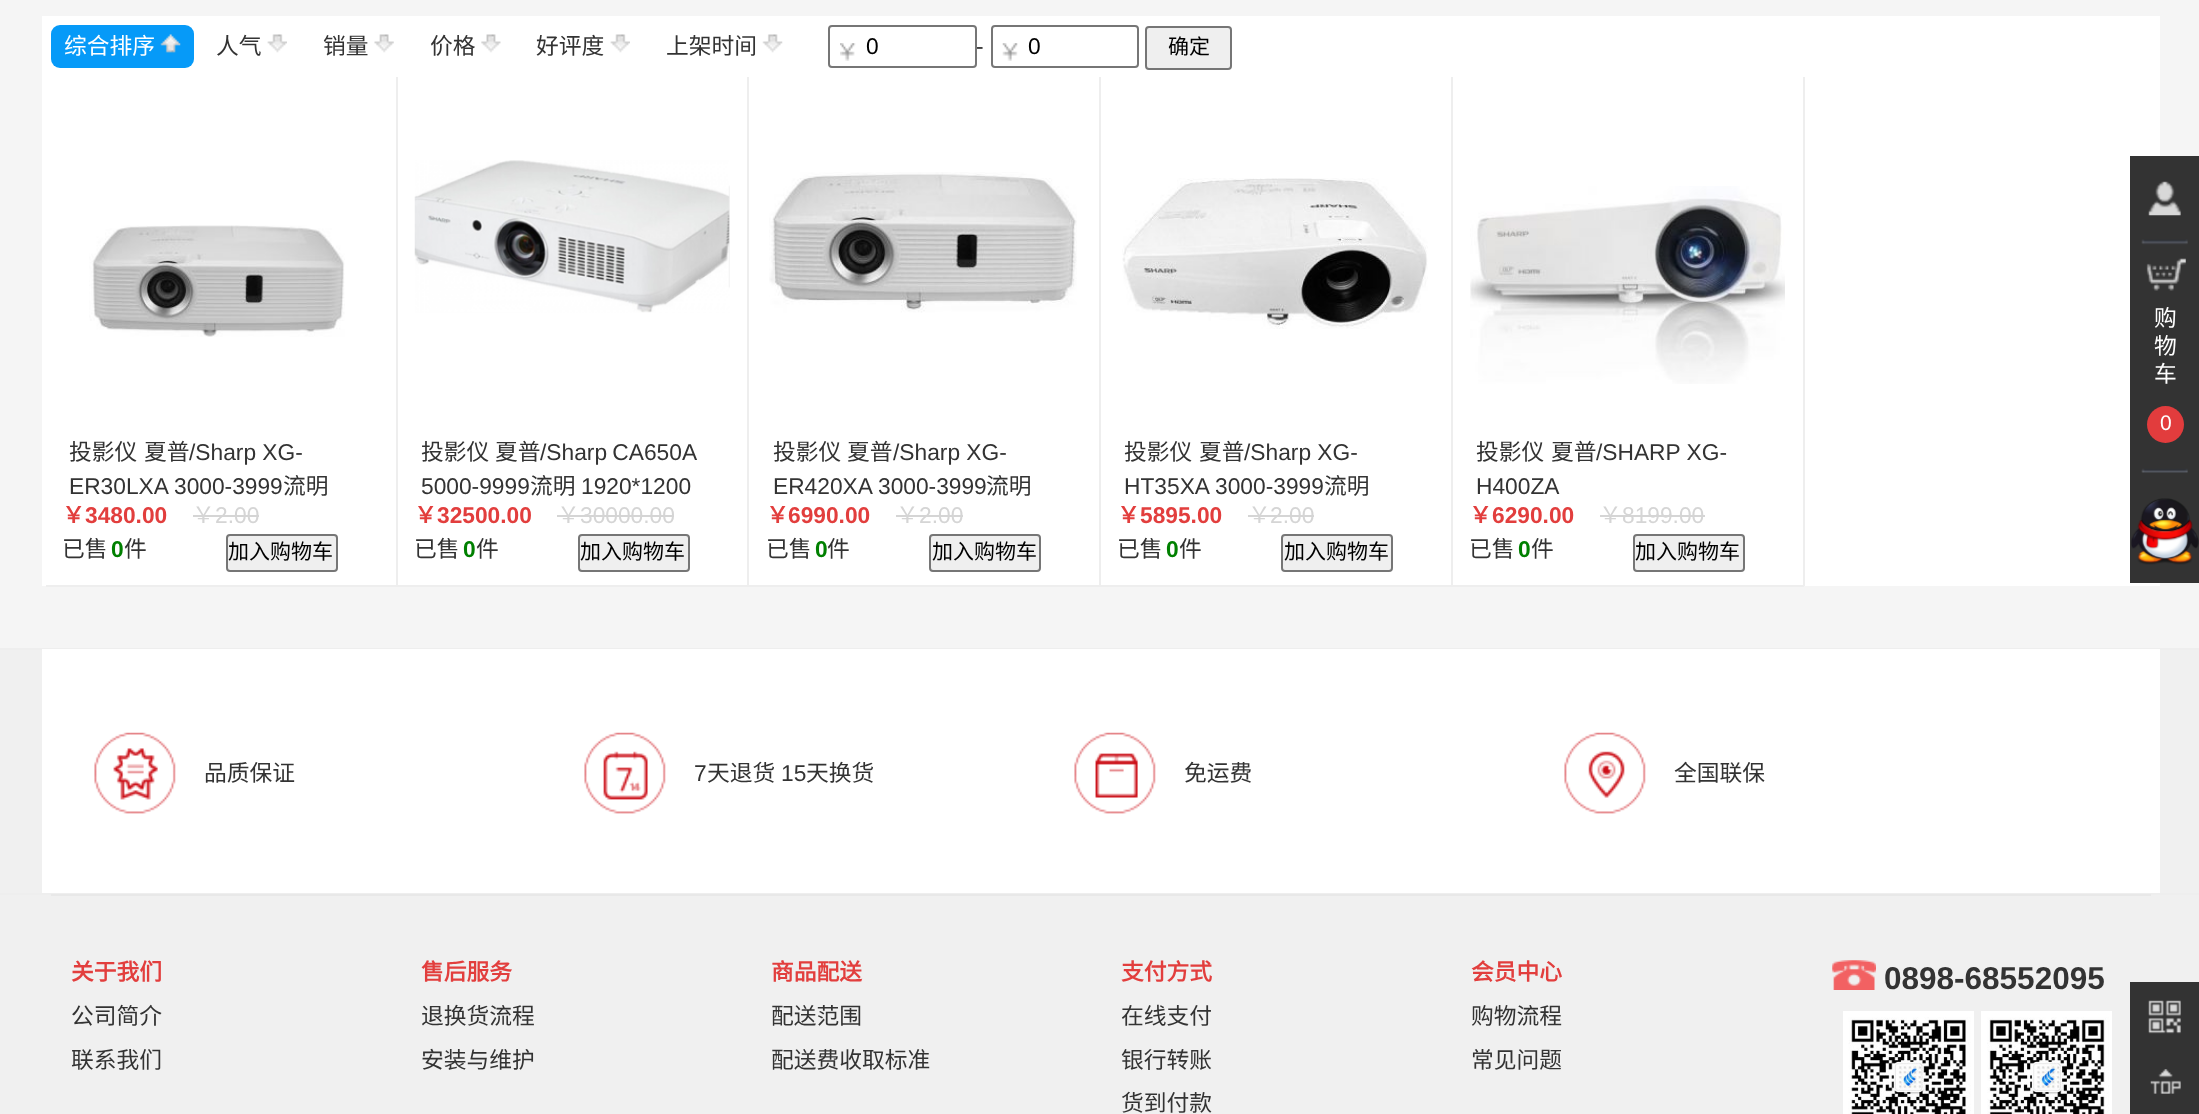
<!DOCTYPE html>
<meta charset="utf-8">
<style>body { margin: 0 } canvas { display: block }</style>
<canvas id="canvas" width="2199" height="1114"></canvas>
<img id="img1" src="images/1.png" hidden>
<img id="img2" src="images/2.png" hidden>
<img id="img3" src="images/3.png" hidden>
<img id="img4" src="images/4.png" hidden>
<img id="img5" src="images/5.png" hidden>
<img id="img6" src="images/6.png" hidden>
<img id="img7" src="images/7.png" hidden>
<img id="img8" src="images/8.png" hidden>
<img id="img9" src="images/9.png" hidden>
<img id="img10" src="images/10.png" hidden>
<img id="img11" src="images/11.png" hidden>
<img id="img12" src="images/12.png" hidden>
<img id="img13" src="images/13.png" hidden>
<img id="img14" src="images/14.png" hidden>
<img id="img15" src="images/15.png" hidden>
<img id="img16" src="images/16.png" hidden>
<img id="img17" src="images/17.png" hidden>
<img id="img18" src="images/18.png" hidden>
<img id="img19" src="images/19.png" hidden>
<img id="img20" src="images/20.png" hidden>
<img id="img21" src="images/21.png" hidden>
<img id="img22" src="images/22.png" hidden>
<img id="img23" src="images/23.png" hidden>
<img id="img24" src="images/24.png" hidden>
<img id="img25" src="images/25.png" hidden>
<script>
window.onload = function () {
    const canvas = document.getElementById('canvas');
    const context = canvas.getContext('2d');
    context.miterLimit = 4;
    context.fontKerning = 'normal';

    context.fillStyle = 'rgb(245, 245, 245)';
    context.fillRect(0, 0, 2199, 1114);
    context.fillStyle = 'rgb(255, 255, 255)';
    context.fillRect(42, 16, 2118, 570);
    context.fillStyle = 'rgb(6, 154, 248)';
    context.beginPath();
    context.roundRect(51, 25, 143, 43, 9);
    context.fill();
    context.drawImage(document.getElementById('img1'), 160, 34, 21, 19);
    context.drawImage(document.getElementById('img2'), 267, 34, 20, 19);
    context.drawImage(document.getElementById('img3'), 374, 34, 20, 19);
    context.drawImage(document.getElementById('img4'), 481, 34, 20, 19);
    context.drawImage(document.getElementById('img2'), 610, 34, 20, 19);
    context.drawImage(document.getElementById('img5'), 762, 34, 21, 19);
    context.beginPath();
    context.roundRect(829, 26, 147, 41, 3);
    context.strokeStyle = 'rgb(118, 118, 118)';
    context.lineWidth = 2;
    context.stroke();
    context.drawImage(document.getElementById('img6'), 840, 43, 16, 18);
    context.beginPath();
    context.roundRect(992, 26, 146, 41, 3);
    context.stroke();
    context.drawImage(document.getElementById('img7'), 1002, 43, 16, 18);
    context.fillStyle = 'rgb(239, 239, 239)';
    context.beginPath();
    context.roundRect(1146, 27, 85, 42, 3);
    context.fill();
    context.stroke();
    context.fillStyle = 'rgb(238, 238, 238)';
    context.fillRect(396, 77, 2, 509);
    context.fillRect(46, 585, 351, 2);
    context.drawImage(document.getElementById('img8'), 89, 225, 256, 112);
    context.fillStyle = 'rgb(213, 213, 213)';
    context.fillRect(193, 515, 66, 2);
    context.fillStyle = 'rgb(239, 239, 239)';
    context.beginPath();
    context.roundRect(227, 535, 110, 36, 3);
    context.fill();
    context.stroke();
    context.fillStyle = 'rgb(238, 238, 238)';
    context.fillRect(747, 77, 2, 509);
    context.fillRect(397, 585, 352, 2);
    context.drawImage(document.getElementById('img9'), 414, 160, 316, 153);
    context.fillStyle = 'rgb(213, 213, 213)';
    context.fillRect(557, 515, 117, 2);
    context.fillStyle = 'rgb(239, 239, 239)';
    context.beginPath();
    context.roundRect(579, 535, 110, 36, 3);
    context.fill();
    context.stroke();
    context.fillStyle = 'rgb(238, 238, 238)';
    context.fillRect(1099, 77, 2, 509);
    context.fillRect(749, 585, 352, 2);
    context.drawImage(document.getElementById('img10'), 769, 172, 308, 141);
    context.fillStyle = 'rgb(213, 213, 213)';
    context.fillRect(896, 515, 67, 2);
    context.fillStyle = 'rgb(239, 239, 239)';
    context.beginPath();
    context.roundRect(930, 535, 110, 36, 3);
    context.fill();
    context.stroke();
    context.fillStyle = 'rgb(238, 238, 238)';
    context.fillRect(1451, 77, 2, 509);
    context.fillRect(1101, 585, 352, 2);
    context.drawImage(document.getElementById('img11'), 1122, 178, 306, 151);
    context.fillStyle = 'rgb(213, 213, 213)';
    context.fillRect(1248, 515, 66, 2);
    context.fillStyle = 'rgb(239, 239, 239)';
    context.beginPath();
    context.roundRect(1282, 535, 110, 36, 3);
    context.fill();
    context.stroke();
    context.fillStyle = 'rgb(238, 238, 238)';
    context.fillRect(1803, 77, 2, 509);
    context.fillRect(1453, 585, 351, 2);
    context.drawImage(document.getElementById('img12'), 1470, 186, 315, 198);
    context.fillStyle = 'rgb(213, 213, 213)';
    context.fillRect(1600, 515, 105, 2);
    context.fillStyle = 'rgb(239, 239, 239)';
    context.beginPath();
    context.roundRect(1634, 535, 110, 36, 3);
    context.fill();
    context.stroke();
    context.fillStyle = 'rgb(51, 51, 51)';
    context.fillRect(2130, 156, 69, 427);
    context.drawImage(document.getElementById('img13'), 2148, 181, 33, 35);
    context.drawImage(document.getElementById('img14'), 2141, 239, 47, 234);
    context.drawImage(document.getElementById('img15'), 2146, 258, 40, 33);
    context.fillStyle = 'rgb(226, 60, 61)';
    context.beginPath();
    context.arc(2165.5, 424.5, 18.5, 0, 2 * Math.PI);
    context.fill();
    context.drawImage(document.getElementById('img16'), 2131, 498, 68, 67);
    context.fillStyle = 'rgb(240, 240, 240)';
    context.fillRect(0, 895, 2199, 219);
    context.fillStyle = 'rgb(51, 51, 51)';
    context.fillRect(2130, 982, 69, 132);
    context.drawImage(document.getElementById('img17'), 2148, 1000, 33, 34);
    context.drawImage(document.getElementById('img18'), 2150, 1069, 31, 25);
    context.fillStyle = 'rgb(240, 240, 240)';
    context.fillRect(0, 650, 2199, 243);
    context.fillStyle = 'rgb(238, 238, 238)';
    context.fillRect(0, 648, 2199, 2);
    context.fillStyle = 'rgb(255, 255, 255)';
    context.fillRect(42, 649, 2118, 244);
    context.drawImage(document.getElementById('img19'), 94, 732, 82, 82);
    context.drawImage(document.getElementById('img20'), 584, 732, 82, 82);
    context.drawImage(document.getElementById('img21'), 1074, 732, 82, 82);
    context.drawImage(document.getElementById('img22'), 1564, 732, 82, 82);
    context.fillStyle = 'rgb(238, 238, 238)';
    context.fillRect(0, 893, 2199, 2);
    context.fillStyle = 'rgb(232, 232, 232)';
    context.fillRect(51, 894, 2100, 2);
    context.drawImage(document.getElementById('img23'), 1832, 960, 44, 30);
    context.drawImage(document.getElementById('img24'), 1843, 1011, 131, 103);
    context.drawImage(document.getElementById('img25'), 1981, 1011, 131, 103);
    context.font = '22.75px Noto Sans CJK SC';
    context.fillStyle = 'rgb(255, 255, 255)';
    context.fillText('综合排序', 64, 54);
    context.fillStyle = 'rgb(51, 51, 51)';
    context.fillText('人气', 216, 54);
    context.fillText('销量', 323, 54);
    context.fillText('价格', 430, 54);
    context.fillText('好评度', 536, 54);
    context.fillText('上架时间', 666, 54);
    context.font = '22.75px Liberation Sans';
    context.fillStyle = 'rgb(0, 0, 0)';
    context.fillText('0', 866, 54);
    context.fillStyle = 'rgb(51, 51, 51)';
    context.fillText('-', 976, 54);
    context.fillStyle = 'rgb(0, 0, 0)';
    context.fillText('0', 1028, 54);
    context.font = '21px Noto Sans CJK SC';
    context.fillText('确定', 1168, 54);
    context.font = '22.75px Noto Sans CJK SC';
    context.fillStyle = 'rgb(51, 51, 51)';
    context.fillText('投影仪', 69, 460);
    context.fillText('夏普', 144, 460);
    context.font = '22.75px Liberation Sans';
    context.fillText('/Sharp XG-', 189, 460);
    context.fillText('ER30LXA 3000-3999', 69, 494);
    context.font = '22.75px Noto Sans CJK SC';
    context.fillText('流明', 283, 494);
    context.font = 'bold 22.75px Noto Sans CJK SC';
    context.fillStyle = 'rgb(226, 62, 61)';
    context.fillText('￥', 62, 523);
    context.font = 'bold 22.75px Liberation Sans';
    context.fillText('3480.00', 85, 523);
    context.font = '22.75px Noto Sans CJK SC';
    context.fillStyle = 'rgb(213, 213, 213)';
    context.fillText('￥', 192, 523);
    context.font = '22.75px Liberation Sans';
    context.fillText('2.00', 215, 523);
    context.font = '22.75px Noto Sans CJK SC';
    context.fillStyle = 'rgb(51, 51, 51)';
    context.fillText('已售', 62, 557);
    context.font = 'bold 22.75px Liberation Sans';
    context.fillStyle = 'rgb(0, 128, 0)';
    context.fillText('0', 111, 557);
    context.font = '22.75px Noto Sans CJK SC';
    context.fillStyle = 'rgb(51, 51, 51)';
    context.fillText('件', 124, 557);
    context.font = '21px Noto Sans CJK SC';
    context.fillStyle = 'rgb(0, 0, 0)';
    context.fillText('加入购物车', 228, 559);
    context.font = '22.75px Noto Sans CJK SC';
    context.fillStyle = 'rgb(51, 51, 51)';
    context.fillText('投影仪', 421, 460);
    context.fillText('夏普', 495, 460);
    context.wordSpacing = '-1px';
    context.font = '22.75px Liberation Sans';
    context.fillText('/Sharp CA650A', 540, 460);
    context.wordSpacing = '0px';
    context.fillText('5000-9999', 421, 494);
    context.font = '22.75px Noto Sans CJK SC';
    context.fillText('流明', 530, 494);
    context.font = '22.75px Liberation Sans';
    context.fillText('1920*1200', 581, 494);
    context.font = 'bold 22.75px Noto Sans CJK SC';
    context.fillStyle = 'rgb(226, 62, 61)';
    context.fillText('￥', 414, 523);
    context.font = 'bold 22.75px Liberation Sans';
    context.fillText('32500.00', 437, 523);
    context.font = '22.75px Noto Sans CJK SC';
    context.fillStyle = 'rgb(213, 213, 213)';
    context.fillText('￥', 557, 523);
    context.font = '22.75px Liberation Sans';
    context.fillText('30000.00', 580, 523);
    context.font = '22.75px Noto Sans CJK SC';
    context.fillStyle = 'rgb(51, 51, 51)';
    context.fillText('已售', 414, 557);
    context.font = 'bold 22.75px Liberation Sans';
    context.fillStyle = 'rgb(0, 128, 0)';
    context.fillText('0', 463, 557);
    context.font = '22.75px Noto Sans CJK SC';
    context.fillStyle = 'rgb(51, 51, 51)';
    context.fillText('件', 476, 557);
    context.font = '21px Noto Sans CJK SC';
    context.fillStyle = 'rgb(0, 0, 0)';
    context.fillText('加入购物车', 580, 559);
    context.font = '22.75px Noto Sans CJK SC';
    context.fillStyle = 'rgb(51, 51, 51)';
    context.fillText('投影仪', 773, 460);
    context.fillText('夏普', 847, 460);
    context.font = '22.75px Liberation Sans';
    context.fillText('/Sharp XG-', 893, 460);
    context.fillText('ER420XA 3000-3999', 773, 494);
    context.font = '22.75px Noto Sans CJK SC';
    context.fillText('流明', 986, 494);
    context.font = 'bold 22.75px Noto Sans CJK SC';
    context.fillStyle = 'rgb(226, 62, 61)';
    context.fillText('￥', 766, 523);
    context.font = 'bold 22.75px Liberation Sans';
    context.fillText('6990.00', 788, 523);
    context.font = '22.75px Noto Sans CJK SC';
    context.fillStyle = 'rgb(213, 213, 213)';
    context.fillText('￥', 896, 523);
    context.font = '22.75px Liberation Sans';
    context.fillText('2.00', 919, 523);
    context.font = '22.75px Noto Sans CJK SC';
    context.fillStyle = 'rgb(51, 51, 51)';
    context.fillText('已售', 766, 557);
    context.font = 'bold 22.75px Liberation Sans';
    context.fillStyle = 'rgb(0, 128, 0)';
    context.fillText('0', 815, 557);
    context.font = '22.75px Noto Sans CJK SC';
    context.fillStyle = 'rgb(51, 51, 51)';
    context.fillText('件', 827, 557);
    context.font = '21px Noto Sans CJK SC';
    context.fillStyle = 'rgb(0, 0, 0)';
    context.fillText('加入购物车', 932, 559);
    context.font = '22.75px Noto Sans CJK SC';
    context.fillStyle = 'rgb(51, 51, 51)';
    context.fillText('投影仪', 1124, 460);
    context.fillText('夏普', 1199, 460);
    context.font = '22.75px Liberation Sans';
    context.fillText('/Sharp XG-', 1244, 460);
    context.fillText('HT35XA 3000-3999', 1124, 494);
    context.font = '22.75px Noto Sans CJK SC';
    context.fillText('流明', 1324, 494);
    context.font = 'bold 22.75px Noto Sans CJK SC';
    context.fillStyle = 'rgb(226, 62, 61)';
    context.fillText('￥', 1117, 523);
    context.font = 'bold 22.75px Liberation Sans';
    context.fillText('5895.00', 1140, 523);
    context.font = '22.75px Noto Sans CJK SC';
    context.fillStyle = 'rgb(213, 213, 213)';
    context.fillText('￥', 1248, 523);
    context.font = '22.75px Liberation Sans';
    context.fillText('2.00', 1270, 523);
    context.font = '22.75px Noto Sans CJK SC';
    context.fillStyle = 'rgb(51, 51, 51)';
    context.fillText('已售', 1117, 557);
    context.font = 'bold 22.75px Liberation Sans';
    context.fillStyle = 'rgb(0, 128, 0)';
    context.fillText('0', 1166, 557);
    context.font = '22.75px Noto Sans CJK SC';
    context.fillStyle = 'rgb(51, 51, 51)';
    context.fillText('件', 1179, 557);
    context.font = '21px Noto Sans CJK SC';
    context.fillStyle = 'rgb(0, 0, 0)';
    context.fillText('加入购物车', 1284, 559);
    context.font = '22.75px Noto Sans CJK SC';
    context.fillStyle = 'rgb(51, 51, 51)';
    context.fillText('投影仪', 1476, 460);
    context.fillText('夏普', 1551, 460);
    context.font = '22.75px Liberation Sans';
    context.fillText('/SHARP XG-', 1596, 460);
    context.fillText('H400ZA', 1476, 494);
    context.font = 'bold 22.75px Noto Sans CJK SC';
    context.fillStyle = 'rgb(226, 62, 61)';
    context.fillText('￥', 1469, 523);
    context.font = 'bold 22.75px Liberation Sans';
    context.fillText('6290.00', 1492, 523);
    context.font = '22.75px Noto Sans CJK SC';
    context.fillStyle = 'rgb(213, 213, 213)';
    context.fillText('￥', 1599, 523);
    context.font = '22.75px Liberation Sans';
    context.fillText('8199.00', 1622, 523);
    context.font = '22.75px Noto Sans CJK SC';
    context.fillStyle = 'rgb(51, 51, 51)';
    context.fillText('已售', 1469, 557);
    context.font = 'bold 22.75px Liberation Sans';
    context.fillStyle = 'rgb(0, 128, 0)';
    context.fillText('0', 1518, 557);
    context.font = '22.75px Noto Sans CJK SC';
    context.fillStyle = 'rgb(51, 51, 51)';
    context.fillText('件', 1531, 557);
    context.font = '21px Noto Sans CJK SC';
    context.fillStyle = 'rgb(0, 0, 0)';
    context.fillText('加入购物车', 1635, 559);
    context.font = '22.75px Noto Sans CJK SC';
    context.fillStyle = 'rgb(255, 255, 255)';
    context.fillText('购', 2154, 326);
    context.fillText('物', 2154, 354);
    context.fillText('车', 2154, 382);
    context.font = '21px Liberation Sans';
    context.fillText('0', 2160, 430);
    context.font = '22.75px Noto Sans CJK SC';
    context.fillStyle = 'rgb(51, 51, 51)';
    context.fillText('品质保证', 204, 781);
    context.font = '22.75px Liberation Sans';
    context.fillText('7', 694, 781);
    context.font = '22.75px Noto Sans CJK SC';
    context.fillText('天退货', 707, 781);
    context.font = '22.75px Liberation Sans';
    context.fillText('15', 781, 781);
    context.font = '22.75px Noto Sans CJK SC';
    context.fillText('天换货', 806, 781);
    context.fillText('免运费', 1184, 781);
    context.fillText('全国联保', 1674, 781);
    context.font = 'bold 22.75px Noto Sans CJK SC';
    context.fillStyle = 'rgb(226, 62, 61)';
    context.fillText('关于我们', 71, 980);
    context.font = '22.75px Noto Sans CJK SC';
    context.fillStyle = 'rgb(51, 51, 51)';
    context.fillText('公司简介', 71, 1024);
    context.fillText('联系我们', 71, 1068);
    context.font = 'bold 22.75px Noto Sans CJK SC';
    context.fillStyle = 'rgb(226, 62, 61)';
    context.fillText('售后服务', 421, 980);
    context.font = '22.75px Noto Sans CJK SC';
    context.fillStyle = 'rgb(51, 51, 51)';
    context.fillText('退换货流程', 421, 1024);
    context.fillText('安装与维护', 421, 1068);
    context.font = 'bold 22.75px Noto Sans CJK SC';
    context.fillStyle = 'rgb(226, 62, 61)';
    context.fillText('商品配送', 771, 980);
    context.font = '22.75px Noto Sans CJK SC';
    context.fillStyle = 'rgb(51, 51, 51)';
    context.fillText('配送范围', 771, 1024);
    context.fillText('配送费收取标准', 771, 1068);
    context.font = 'bold 22.75px Noto Sans CJK SC';
    context.fillStyle = 'rgb(226, 62, 61)';
    context.fillText('支付方式', 1121, 980);
    context.font = '22.75px Noto Sans CJK SC';
    context.fillStyle = 'rgb(51, 51, 51)';
    context.fillText('在线支付', 1121, 1024);
    context.fillText('银行转账', 1121, 1068);
    context.fillText('货到付款', 1121, 1111);
    context.font = 'bold 22.75px Noto Sans CJK SC';
    context.fillStyle = 'rgb(226, 62, 61)';
    context.fillText('会员中心', 1471, 980);
    context.font = '22.75px Noto Sans CJK SC';
    context.fillStyle = 'rgb(51, 51, 51)';
    context.fillText('购物流程', 1471, 1024);
    context.fillText('常见问题', 1471, 1068);
    context.font = 'bold 31.5px Liberation Sans';
    context.fillText('0898-68552095', 1884, 989);
};
</script>
